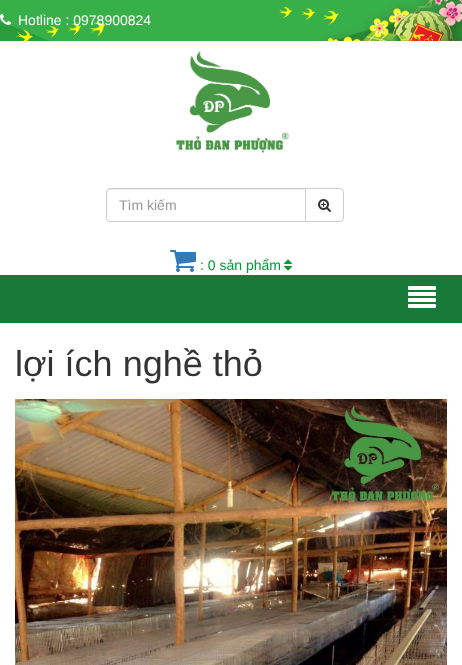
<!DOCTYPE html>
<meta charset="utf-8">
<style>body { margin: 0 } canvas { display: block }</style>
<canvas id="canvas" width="462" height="665"></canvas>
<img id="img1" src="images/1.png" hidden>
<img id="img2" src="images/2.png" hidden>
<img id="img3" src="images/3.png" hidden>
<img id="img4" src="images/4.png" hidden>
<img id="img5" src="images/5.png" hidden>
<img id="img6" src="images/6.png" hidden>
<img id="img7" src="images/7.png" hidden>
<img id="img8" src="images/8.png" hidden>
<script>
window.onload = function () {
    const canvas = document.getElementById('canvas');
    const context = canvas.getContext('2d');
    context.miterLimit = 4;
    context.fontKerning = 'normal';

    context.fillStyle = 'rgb(255, 255, 255)';
    context.fillRect(0, 0, 462, 665);
    context.drawImage(document.getElementById('img1'), 0, 0, 462, 41);
    context.drawImage(document.getElementById('img2'), 0, 14, 11, 11);
    context.drawImage(document.getElementById('img3'), 176, 50, 114, 103);
    context.beginPath();
    context.roundRect(305.5, 188.5, 38, 33, [0, 3.5, 3.5, 0]);
    context.strokeStyle = 'rgb(204, 204, 204)';
    context.stroke();
    context.beginPath();
    context.roundRect(106, 188, 200, 34, [4, 0, 0, 4]);
    context.fill();
    context.fillStyle = 'rgb(236, 236, 236)';
    context.beginPath();
    context.moveTo(110, 190);
    context.lineTo(305, 190);
    context.lineTo(305, 189);
    context.lineTo(110, 189);
    context.bezierCurveTo(108, 189, 107, 191, 107, 193);
    context.bezierCurveTo(107, 191, 108, 190, 110, 190);
    context.closePath();
    context.fill();
    context.beginPath();
    context.roundRect(106.5, 188.5, 199, 33, [3.5, 0, 0, 3.5]);
    context.stroke();
    context.drawImage(document.getElementById('img4'), 318, 199, 13, 13);
    context.drawImage(document.getElementById('img5'), 170, 250, 26, 22);
    context.drawImage(document.getElementById('img6'), 284, 259, 8, 12);
    context.fillStyle = 'rgb(24, 122, 57)';
    context.fillRect(0, 275, 462, 48);
    context.drawImage(document.getElementById('img7'), 408, 286, 28, 22);
    context.drawImage(document.getElementById('img8'), 15, 399, 432, 266);
    context.font = '14px Liberation Sans';
    context.fillStyle = 'rgb(255, 255, 255)';
    context.fillText('Hotline : 0978900824', 18, 25);
    context.fillStyle = 'rgb(153, 153, 153)';
    context.fillText('Tìm kiếm', 119, 210);
    context.fillStyle = 'rgb(3, 153, 53)';
    context.fillText(': 0 sản phẩm', 200, 270);
    context.font = '36px Liberation Sans';
    context.fillStyle = 'rgb(51, 51, 51)';
    context.fillText('lợi ích nghề thỏ', 15, 376);
};
</script>
